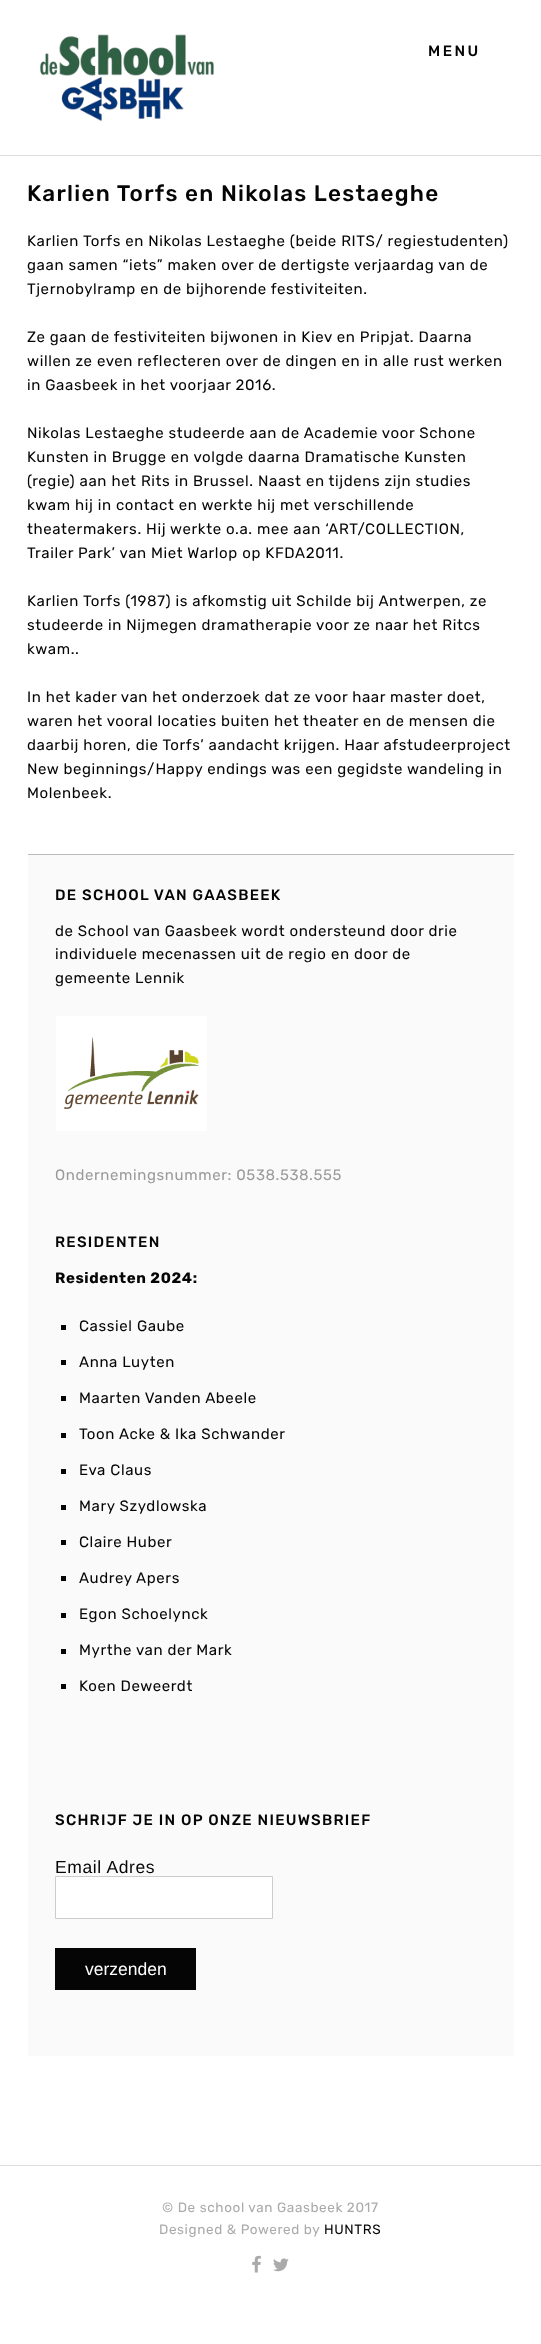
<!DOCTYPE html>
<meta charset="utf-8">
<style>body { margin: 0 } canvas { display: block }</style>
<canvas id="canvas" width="541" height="2344"></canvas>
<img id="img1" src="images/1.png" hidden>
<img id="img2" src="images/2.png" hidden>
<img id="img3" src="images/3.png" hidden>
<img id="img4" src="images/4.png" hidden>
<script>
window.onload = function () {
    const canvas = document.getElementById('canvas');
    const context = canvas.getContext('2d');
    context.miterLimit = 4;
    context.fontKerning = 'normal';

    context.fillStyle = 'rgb(255, 255, 255)';
    context.fillRect(0, 0, 541, 2344);
    context.fillStyle = 'rgb(221, 221, 221)';
    context.fillRect(0, 155, 541, 1);
    context.drawImage(document.getElementById('img1'), 40, 34, 174, 88);
    context.fillStyle = 'rgb(250, 250, 250)';
    context.fillRect(28, 855, 486, 1201);
    context.fillStyle = 'rgb(187, 187, 187)';
    context.fillRect(28, 854, 486, 1);
    context.drawImage(document.getElementById('img2'), 56, 1016, 151, 115);
    context.fillStyle = 'rgb(5, 5, 5)';
    context.fillRect(61, 1325, 5, 5);
    context.fillRect(61, 1360, 5, 5);
    context.fillRect(61, 1396, 5, 5);
    context.fillRect(61, 1433, 5, 5);
    context.fillRect(61, 1469, 5, 5);
    context.fillRect(61, 1505, 5, 5);
    context.fillRect(61, 1540, 5, 5);
    context.fillRect(61, 1576, 5, 5);
    context.fillRect(61, 1613, 5, 5);
    context.fillRect(61, 1649, 5, 5);
    context.fillRect(61, 1684, 5, 5);
    context.fillStyle = 'rgb(255, 255, 255)';
    context.beginPath();
    context.rect(55.5, 1876.5, 217, 42);
    context.fill();
    context.strokeStyle = 'rgb(204, 204, 204)';
    context.stroke();
    context.fillStyle = 'rgb(5, 5, 5)';
    context.fillRect(55, 1948, 141, 42);
    context.fillStyle = 'rgb(221, 221, 221)';
    context.fillRect(0, 2165, 541, 1);
    context.drawImage(document.getElementById('img3'), 252, 2255, 9, 18);
    context.drawImage(document.getElementById('img4'), 273, 2258, 16, 14);
    context.letterSpacing = '2.5px';
    context.font = '300 15px Rubik';
    context.fillStyle = 'rgb(5, 5, 5)';
    context.fillText('MENU', 428, 56);
    context.letterSpacing = '1.25px';
    context.font = '300 22.5px Rubik';
    context.fillText('Karlien Torfs en Nikolas Lestaeghe', 27, 201);
    context.letterSpacing = '0.62px';
    context.font = '15px Rubik';
    context.fillText('Karlien Torfs en Nikolas Lestaeghe (beide RITS/ regiestudenten)', 27, 246);
    context.fillText('gaan samen “iets” maken over de dertigste verjaardag van de', 27, 270);
    context.fillText('Tjernobylramp en de bijhorende festiviteiten.', 27, 294);
    context.fillText('Ze gaan de festiviteiten bijwonen in Kiev en Pripjat. Daarna', 27, 342);
    context.fillText('willen ze even reflecteren over de dingen en in alle rust werken', 27, 366);
    context.fillText('in Gaasbeek in het voorjaar 2016.', 27, 390);
    context.fillText('Nikolas Lestaeghe studeerde aan de Academie voor Schone', 27, 438);
    context.fillText('Kunsten in Brugge en volgde daarna Dramatische Kunsten', 27, 462);
    context.fillText('(regie) aan het Rits in Brussel. Naast en tijdens zijn studies', 27, 486);
    context.fillText('kwam hij in contact en werkte hij met verschillende', 27, 510);
    context.fillText('theatermakers. Hij werkte o.a. mee aan ‘ART/COLLECTION,', 27, 534);
    context.fillText('Trailer Park’ van Miet Warlop op KFDA2011.', 27, 558);
    context.fillText('Karlien Torfs (1987) is afkomstig uit Schilde bij Antwerpen, ze', 27, 606);
    context.fillText('studeerde in Nijmegen dramatherapie voor ze naar het Ritcs', 27, 630);
    context.fillText('kwam..', 27, 654);
    context.fillText('In het kader van het onderzoek dat ze voor haar master doet,', 27, 702);
    context.fillText('waren het vooral locaties buiten het theater en de mensen die', 27, 726);
    context.fillText('daarbij horen, die Torfs’ aandacht krijgen. Haar afstudeerproject', 27, 750);
    context.fillText('New beginnings/Happy endings was een gegidste wandeling in', 27, 774);
    context.fillText('Molenbeek.', 27, 798);
    context.letterSpacing = '1.25px';
    context.font = '300 15px Rubik';
    context.fillText('DE SCHOOL VAN GAASBEEK', 55, 900);
    context.letterSpacing = '0.62px';
    context.font = '15px Rubik';
    context.fillText('de School van Gaasbeek wordt ondersteund door drie', 55, 936);
    context.fillText('individuele mecenassen uit de regio en door de', 55, 959);
    context.fillText('gemeente Lennik', 55, 983);
    context.fillStyle = 'rgb(154, 154, 154)';
    context.fillText('Ondernemingsnummer: 0538.538.555', 55, 1180);
    context.letterSpacing = '1.25px';
    context.font = '300 15px Rubik';
    context.fillStyle = 'rgb(5, 5, 5)';
    context.fillText('RESIDENTEN', 55, 1247);
    context.letterSpacing = '0.62px';
    context.font = 'bold 15px Rubik';
    context.fillText('Residenten 2024:', 55, 1283);
    context.font = '15px Rubik';
    context.fillText('Cassiel Gaube', 79, 1331);
    context.fillText('Anna Luyten', 79, 1367);
    context.fillText('Maarten Vanden Abeele', 79, 1403);
    context.fillText('Toon Acke & Ika Schwander', 79, 1439);
    context.fillText('Eva Claus', 79, 1475);
    context.fillText('Mary Szydlowska', 79, 1511);
    context.fillText('Claire Huber', 79, 1547);
    context.fillText('Audrey Apers', 79, 1583);
    context.fillText('Egon Schoelynck', 79, 1619);
    context.fillText('Myrthe van der Mark', 79, 1655);
    context.fillText('Koen Deweerdt', 79, 1691);
    context.letterSpacing = '1.25px';
    context.font = '300 15px Rubik';
    context.fillText('SCHRIJF JE IN OP ONZE NIEUWSBRIEF', 55, 1825);
    context.letterSpacing = '0.62px';
    context.font = '17.5px Liberation Sans';
    context.fillText('Email Adres', 55, 1873);
    context.letterSpacing = '0px';
    context.fillStyle = 'rgb(255, 255, 255)';
    context.fillText('verzenden', 85, 1975);
    context.letterSpacing = '0.62px';
    context.font = '13.5px Rubik';
    context.fillStyle = 'rgb(170, 170, 170)';
    context.fillText('© De school van Gaasbeek 2017', 162, 2212);
    context.fillText('Designed & Powered by', 159, 2234);
    context.fillStyle = 'rgb(5, 5, 5)';
    context.fillText('HUNTRS', 324, 2234);
};
</script>
